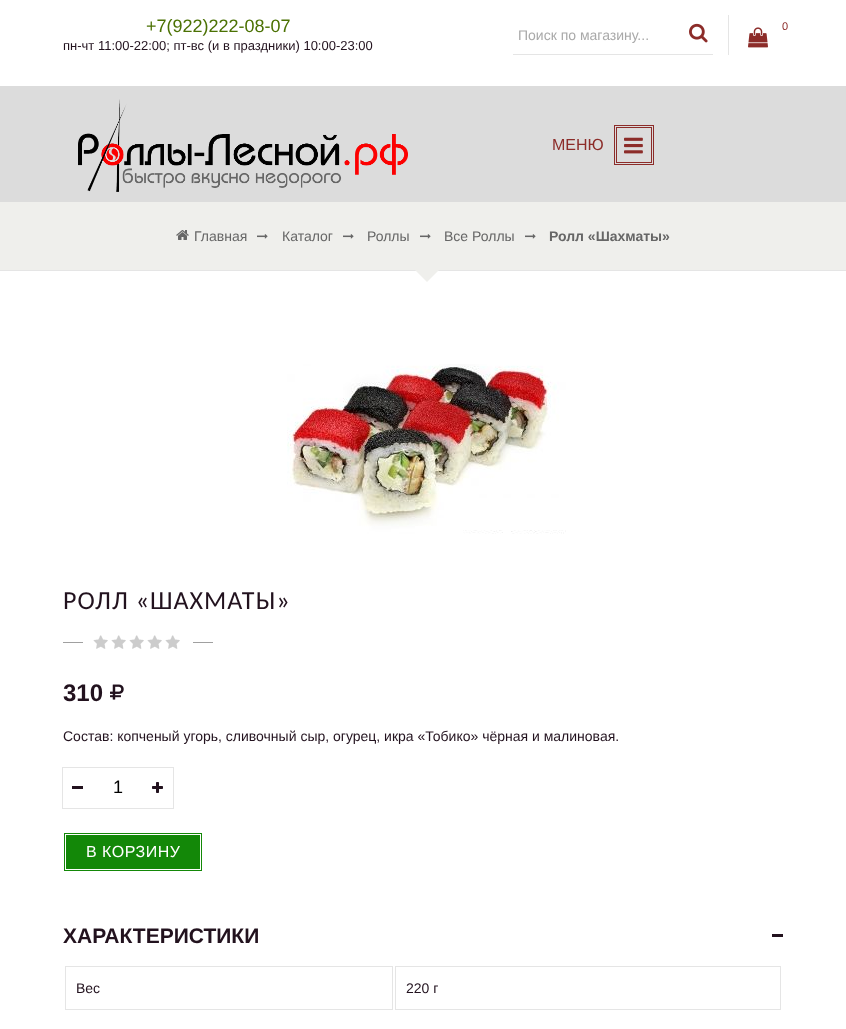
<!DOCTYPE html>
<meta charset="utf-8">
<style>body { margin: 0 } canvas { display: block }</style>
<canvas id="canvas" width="846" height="1029"></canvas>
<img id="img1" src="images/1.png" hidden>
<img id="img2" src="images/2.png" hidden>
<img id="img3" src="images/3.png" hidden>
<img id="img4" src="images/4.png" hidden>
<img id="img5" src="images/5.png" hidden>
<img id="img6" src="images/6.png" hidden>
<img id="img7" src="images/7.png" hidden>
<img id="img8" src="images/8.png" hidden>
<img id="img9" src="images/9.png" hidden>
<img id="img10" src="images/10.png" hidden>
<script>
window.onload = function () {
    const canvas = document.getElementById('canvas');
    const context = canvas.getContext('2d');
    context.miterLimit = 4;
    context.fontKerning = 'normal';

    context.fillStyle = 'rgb(255, 255, 255)';
    context.fillRect(0, 0, 846, 1029);
    context.drawImage(document.getElementById('img1'), 748, 27, 20, 21);
    context.fillStyle = 'rgb(229, 229, 229)';
    context.fillRect(728, 15, 1, 40);
    context.fillRect(513, 54, 200, 1);
    context.drawImage(document.getElementById('img2'), 689, 23, 19, 20);
    context.fillStyle = 'rgb(220, 220, 220)';
    context.fillRect(0, 86, 846, 116);
    context.drawImage(document.getElementById('img3'), 78, 99, 330, 93);
    context.strokeStyle = 'rgb(140, 44, 41)';
    context.strokeRect(614.5, 125.5, 39, 39);
    context.strokeRect(616.5, 127.5, 35, 35);
    context.drawImage(document.getElementById('img4'), 624, 137, 19, 17);
    context.fillStyle = 'rgb(239, 239, 236)';
    context.fillRect(0, 202, 846, 68);
    context.fillStyle = 'rgb(229, 229, 229)';
    context.fillRect(0, 270, 846, 1);
    context.drawImage(document.getElementById('img5'), 176, 230, 13, 10);
    context.drawImage(document.getElementById('img6'), 257, 234, 11, 5);
    context.drawImage(document.getElementById('img6'), 343, 234, 11, 5);
    context.drawImage(document.getElementById('img6'), 420, 234, 11, 5);
    context.drawImage(document.getElementById('img6'), 525, 234, 11, 5);
    context.fillStyle = 'rgb(239, 239, 236)';
    context.beginPath();
    context.moveTo(415, 270);
    context.lineTo(439, 270);
    context.lineTo(427, 282);
    context.closePath();
    context.fill();
    context.drawImage(document.getElementById('img7'), 287, 364, 279, 170);
    context.fillStyle = 'rgb(160, 160, 160)';
    context.fillRect(63, 642, 20, 1);
    context.drawImage(document.getElementById('img8'), 93, 635, 87, 14);
    context.fillRect(193, 642, 20, 1);
    context.drawImage(document.getElementById('img9'), 110, 684, 14, 16);
    context.fillStyle = 'rgb(34, 18, 30)';
    context.fillRect(72, 786, 11, 3);
    context.drawImage(document.getElementById('img10'), 152, 782, 11, 11);
    context.strokeStyle = 'rgb(229, 229, 229)';
    context.strokeRect(62.5, 767.5, 111, 41);
    context.fillStyle = 'rgb(19, 136, 8)';
    context.fillRect(64, 833, 138, 38);
    context.strokeStyle = 'rgb(255, 255, 255)';
    context.strokeRect(65.5, 834.5, 135, 35);
    context.fillStyle = 'rgb(34, 18, 30)';
    context.fillRect(772, 934, 11, 3);
    context.strokeStyle = 'rgb(229, 229, 229)';
    context.strokeRect(65.5, 966.5, 327, 43);
    context.strokeRect(395.5, 966.5, 385, 43);
    context.font = '18px Liberation Sans';
    context.fillStyle = 'rgb(75, 113, 3)';
    context.fillText('+7(922)222-08-07', 146, 32);
    context.font = '13px Liberation Sans';
    context.fillStyle = 'rgb(34, 18, 30)';
    context.fillText('пн-чт 11:00-22:00; пт-вс (и в праздники) 10:00-23:00', 63, 50);
    context.font = '11px Liberation Sans';
    context.fillStyle = 'rgb(140, 44, 41)';
    context.fillText('0', 782, 30);
    context.font = '14px Liberation Sans';
    context.fillStyle = 'rgb(169, 169, 169)';
    context.fillText('Поиск по магазину...', 518, 40);
    context.font = '16px Liberation Sans';
    context.fillStyle = 'rgb(140, 44, 41)';
    context.fillText('МЕНЮ', 552, 150);
    context.font = '14px Liberation Sans';
    context.fillStyle = 'rgb(102, 102, 102)';
    context.fillText('Главная', 194, 241);
    context.fillText('Каталог', 282, 241);
    context.fillText('Роллы', 367, 241);
    context.fillText('Все Роллы', 444, 241);
    context.font = 'bold 14px Liberation Sans';
    context.fillText('Ролл «Шахматы»', 549, 241);
    context.letterSpacing = '1px';
    context.font = '26px Carlito';
    context.fillStyle = 'rgb(34, 18, 30)';
    context.fillText('РОЛЛ «ШАХМАТЫ»', 63, 609);
    context.letterSpacing = '0px';
    context.font = 'bold 24px Liberation Sans';
    context.fillText('310', 63, 701);
    context.font = '14px Liberation Sans';
    context.fillText('Состав: копченый угорь, сливочный сыр, огурец, икра «Тобико» чёрная и малиновая.', 63, 741);
    context.font = '18px Liberation Sans';
    context.fillStyle = 'rgb(0, 0, 0)';
    context.fillText('1', 113, 793);
    context.letterSpacing = '0.5px';
    context.font = '16px Liberation Sans';
    context.fillStyle = 'rgb(255, 255, 255)';
    context.fillText('В КОРЗИНУ', 86, 857);
    context.letterSpacing = '0px';
    context.font = 'bold 21px Liberation Sans';
    context.fillStyle = 'rgb(34, 18, 30)';
    context.fillText('ХАРАКТЕРИСТИКИ', 63, 943);
    context.font = '14px Liberation Sans';
    context.fillText('Вес', 76, 993);
    context.fillText('220 г', 406, 993);
};
</script>
